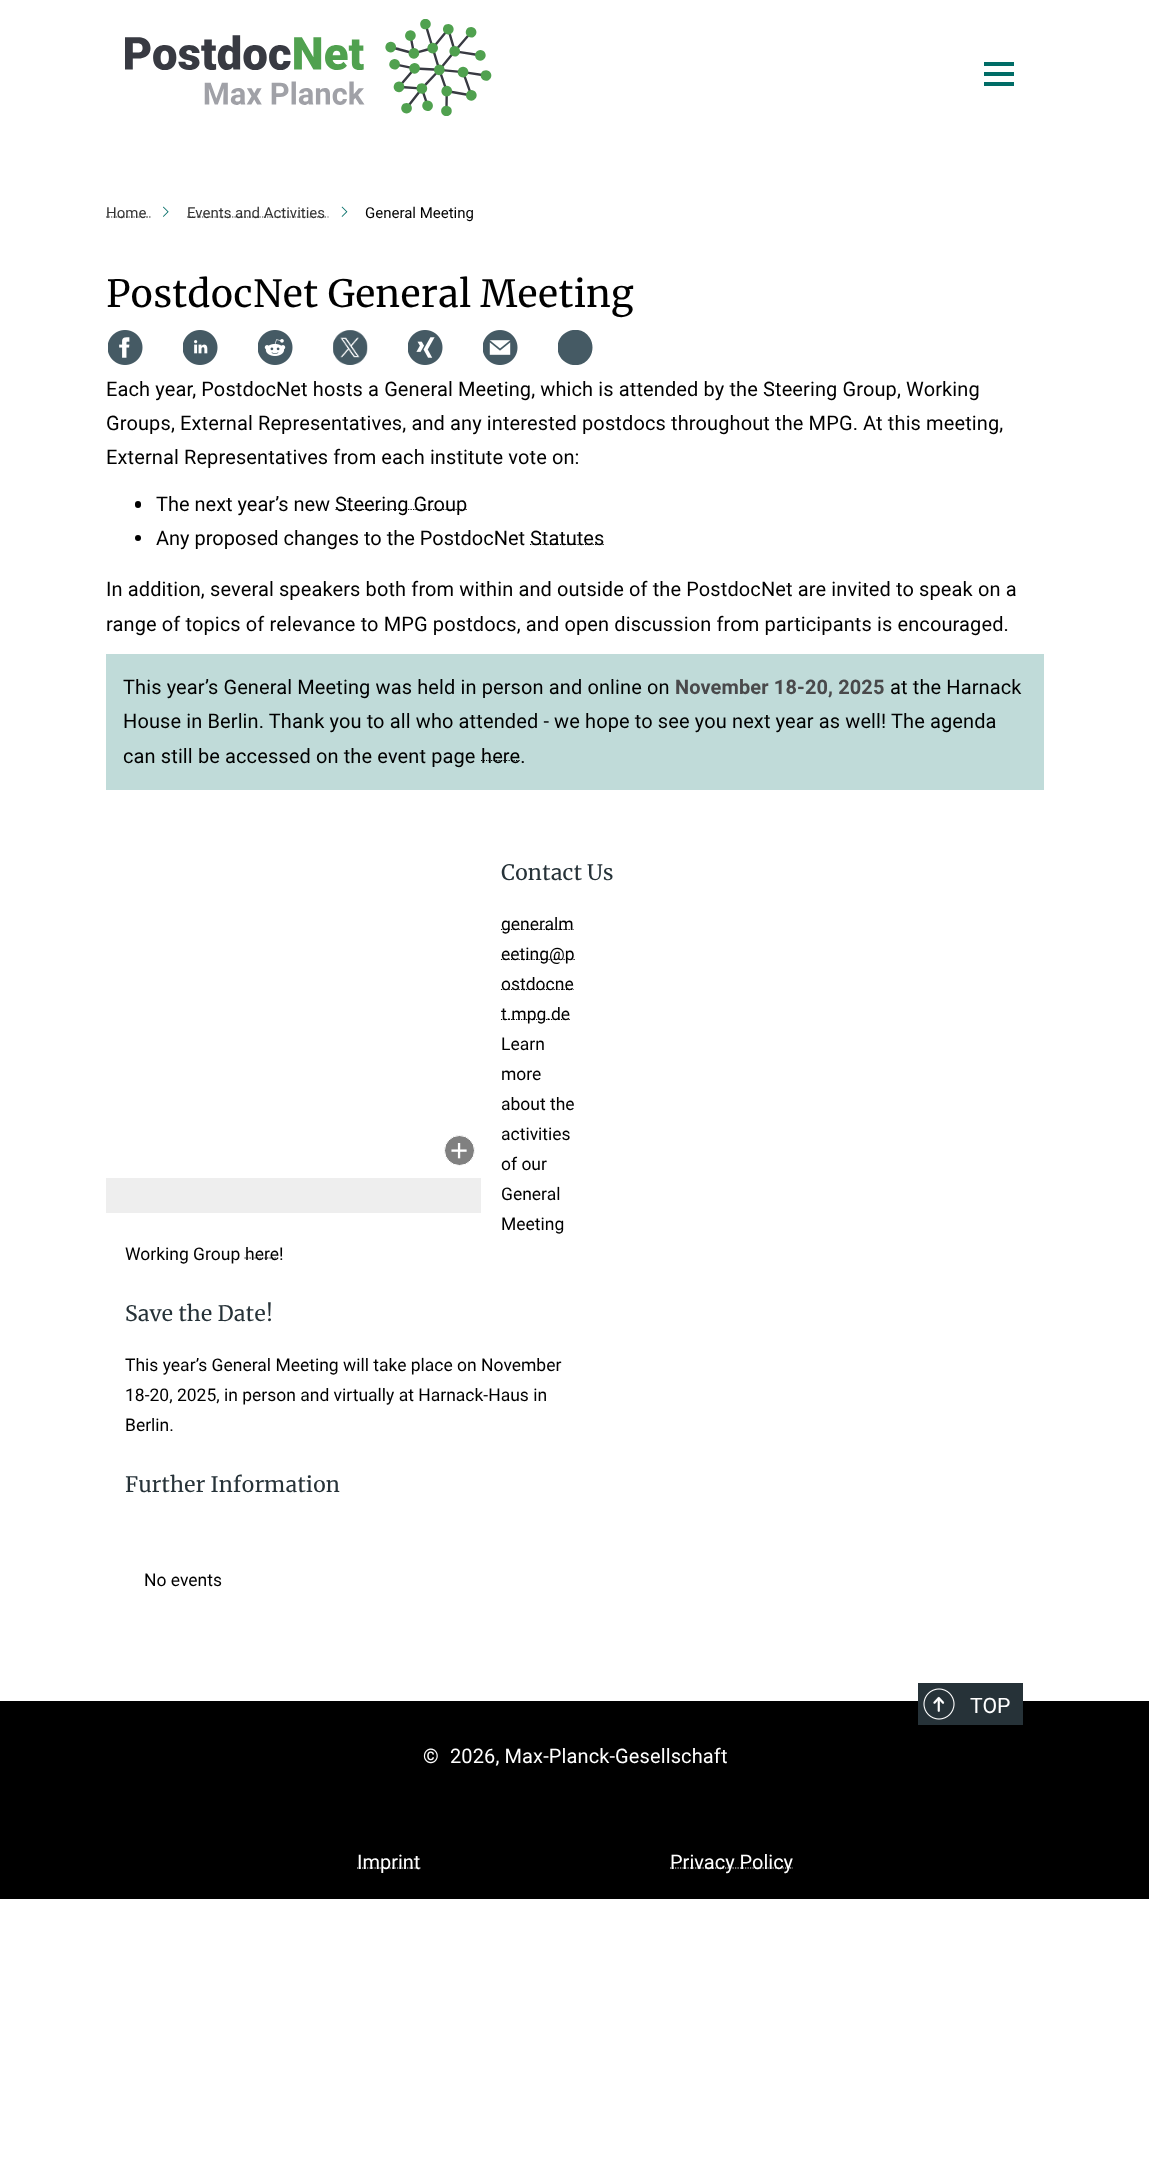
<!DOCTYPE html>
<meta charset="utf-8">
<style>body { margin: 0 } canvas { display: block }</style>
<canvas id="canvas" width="1149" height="2168"></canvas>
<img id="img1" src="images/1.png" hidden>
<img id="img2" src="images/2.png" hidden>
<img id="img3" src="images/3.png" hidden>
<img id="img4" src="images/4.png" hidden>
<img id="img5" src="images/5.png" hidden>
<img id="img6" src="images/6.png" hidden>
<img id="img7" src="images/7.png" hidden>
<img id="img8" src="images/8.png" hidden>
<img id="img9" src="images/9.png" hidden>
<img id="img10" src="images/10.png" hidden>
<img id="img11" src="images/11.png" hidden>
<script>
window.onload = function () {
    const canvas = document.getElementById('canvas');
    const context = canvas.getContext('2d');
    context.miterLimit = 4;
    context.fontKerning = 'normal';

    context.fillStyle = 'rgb(255, 255, 255)';
    context.fillRect(0, 0, 1149, 2168);
    context.drawImage(document.getElementById('img1'), 125, 19, 367, 97);
    context.fillStyle = 'rgb(0, 108, 102)';
    context.fillRect(984, 62, 30, 4);
    context.fillRect(984, 72, 30, 4);
    context.fillRect(984, 82, 30, 4);
    context.beginPath();
    context.moveTo(106, 217);
    context.lineTo(146.5, 217);
    context.strokeStyle = 'rgb(51, 51, 51)';
    context.lineWidth = 1.2;
    context.setLineDash([1.25, 1.25]);
    context.stroke();
    context.beginPath();
    context.moveTo(146.5, 217);
    context.lineTo(148, 217);
    context.moveTo(149, 217);
    context.lineTo(150.5, 217);
    context.setLineDash([]);
    context.stroke();
    context.drawImage(document.getElementById('img2'), 163, 206, 6, 11);
    context.beginPath();
    context.moveTo(187, 217);
    context.lineTo(325, 217);
    context.setLineDash([1.25, 1.25]);
    context.stroke();
    context.beginPath();
    context.moveTo(325, 217);
    context.lineTo(326, 217);
    context.moveTo(327.5, 217);
    context.lineTo(328.5, 217);
    context.setLineDash([]);
    context.stroke();
    context.drawImage(document.getElementById('img3'), 341, 206, 7, 11);
    context.drawImage(document.getElementById('img4'), 108, 330, 35, 35);
    context.drawImage(document.getElementById('img5'), 183, 330, 35, 35);
    context.drawImage(document.getElementById('img6'), 258, 330, 35, 35);
    context.drawImage(document.getElementById('img7'), 333, 330, 35, 35);
    context.drawImage(document.getElementById('img8'), 408, 330, 35, 35);
    context.drawImage(document.getElementById('img9'), 483, 330, 35, 35);
    context.save();
    context.beginPath();
    context.rect(558, 330, 35, 35);
    context.clip();
    context.fillStyle = 'rgb(69, 90, 100)';
    context.beginPath();
    context.moveTo(592.5, 347.5);
    context.bezierCurveTo(592.5, 351, 591.5, 354.5, 589.5, 357.5);
    context.bezierCurveTo(580, 372, 557.5, 364.5, 557.5, 347.5);
    context.bezierCurveTo(557.5, 330.5, 580, 323, 589.5, 337.5);
    context.bezierCurveTo(591.5, 340.5, 592.5, 344, 592.5, 347.5);
    context.closePath();
    context.fill();
    context.restore();
    context.fillStyle = 'rgb(0, 0, 0)';
    context.beginPath();
    context.roundRect(135, 501, 6, 7, 3);
    context.fill();
    context.beginPath();
    context.moveTo(335.5, 509.5);
    context.lineTo(467.5, 509.5);
    context.strokeStyle = 'rgb(0, 0, 0)';
    context.setLineDash([1.25, 1.25]);
    context.stroke();
    context.beginPath();
    context.arc(138, 538, 3, 0, 2 * Math.PI);
    context.fill();
    context.beginPath();
    context.moveTo(530, 544.5);
    context.lineTo(604.5, 544.5);
    context.stroke();
    context.fillStyle = 'rgb(192, 219, 217)';
    context.fillRect(106, 654, 938, 136);
    context.beginPath();
    context.moveTo(481, 760.5);
    context.lineTo(520, 760.5);
    context.stroke();
    context.fillStyle = 'rgb(128, 128, 128)';
    context.beginPath();
    context.arc(459.5, 1150.5, 15, 0, 2 * Math.PI);
    context.fill();
    context.strokeStyle = 'rgb(255, 255, 255)';
    context.lineWidth = 1;
    context.setLineDash([]);
    context.stroke();
    context.fillStyle = 'rgb(238, 238, 238)';
    context.fillRect(106, 1178, 375, 35);
    context.beginPath();
    context.moveTo(501, 929.5);
    context.lineTo(574, 929.5);
    context.strokeStyle = 'rgb(0, 0, 0)';
    context.lineWidth = 1.2;
    context.setLineDash([1.25, 1.25]);
    context.stroke();
    context.beginPath();
    context.moveTo(501, 959.5);
    context.lineTo(575, 959.5);
    context.stroke();
    context.beginPath();
    context.moveTo(501, 989.5);
    context.lineTo(574, 989.5);
    context.stroke();
    context.beginPath();
    context.moveTo(501, 1019.5);
    context.lineTo(570.5, 1019.5);
    context.stroke();
    context.beginPath();
    context.moveTo(244.5, 1258);
    context.lineTo(278.5, 1258);
    context.stroke();
    context.fillStyle = 'rgb(0, 0, 0)';
    context.fillRect(0, 1701, 1149, 198);
    context.fillStyle = 'rgb(38, 50, 56)';
    context.fillRect(918, 1683, 105, 42);
    context.drawImage(document.getElementById('img10'), 933, 1696, 12, 16);
    context.drawImage(document.getElementById('img11'), 923, 1688, 32, 32);
    context.beginPath();
    context.moveTo(357, 1868);
    context.lineTo(420.5, 1868);
    context.strokeStyle = 'rgb(255, 255, 255)';
    context.stroke();
    context.beginPath();
    context.moveTo(670, 1868);
    context.lineTo(793, 1868);
    context.stroke();
    context.font = '15px Roboto';
    context.fillStyle = 'rgb(51, 51, 51)';
    context.fillText('Home', 106, 218);
    context.fillText('Events and Activities', 187, 218);
    context.fillStyle = 'rgb(0, 0, 0)';
    context.fillText('General Meeting', 365, 218);
    context.font = '37.5px Merriweather';
    context.fillText('PostdocNet General Meeting', 106, 307);
    context.letterSpacing = '0.12px';
    context.font = '20px Roboto';
    context.fillText('Each year, PostdocNet hosts a General Meeting, which is attended by the Steering Group, Working', 106, 396);
    context.fillText('Groups, External Representatives, and any interested postdocs throughout the MPG. At this meeting,', 106, 430);
    context.fillText('External Representatives from each institute vote on:', 106, 464);
    context.letterSpacing = '0px';
    context.fillText('The next year’s new', 156, 511);
    context.fillText('Steering Group', 335, 511);
    context.fillText('Any proposed changes to the PostdocNet', 156, 545);
    context.fillText('Statutes', 530, 545);
    context.letterSpacing = '0.12px';
    context.fillText('In addition, several speakers both from within and outside of the PostdocNet are invited to speak on a', 106, 596);
    context.fillText('range of topics of relevance to MPG postdocs, and open discussion from participants is encouraged.', 106, 631);
    context.fillText('This year’s General Meeting was held in person and online on', 123, 694);
    context.font = 'bold 20px Roboto';
    context.fillStyle = 'rgb(73, 73, 75)';
    context.fillText('November 18-20, 2025', 675, 694);
    context.font = '20px Roboto';
    context.fillStyle = 'rgb(0, 0, 0)';
    context.fillText('at the Harnack', 890, 694);
    context.fillText('House in Berlin. Thank you to all who attended - we hope to see you next year as well! The agenda', 123, 728);
    context.fillText('can still be accessed on the event page', 123, 763);
    context.fillText('here.', 481, 763);
    context.letterSpacing = '0px';
    context.font = '31px Liberation Sans';
    context.fillStyle = 'rgb(255, 255, 255)';
    context.fillText('+', 450, 1161);
    context.font = '21.25px Merriweather';
    context.fillStyle = 'rgb(38, 50, 56)';
    context.fillText('Contact Us', 501, 880);
    context.font = '17.5px Roboto';
    context.fillStyle = 'rgb(0, 0, 0)';
    context.fillText('generalm', 501, 930);
    context.fillText('eeting@p', 501, 960);
    context.fillText('ostdocne', 501, 990);
    context.fillText('t.mpg.de', 501, 1020);
    context.fillText('Learn', 501, 1050);
    context.fillText('more', 501, 1080);
    context.fillText('about the', 501, 1110);
    context.fillText('activities', 501, 1140);
    context.fillText('of our', 501, 1170);
    context.fillText('General', 501, 1200);
    context.fillText('Meeting', 501, 1230);
    context.fillText('Working Group', 125, 1260);
    context.fillText('here!', 245, 1260);
    context.font = '21.25px Merriweather';
    context.fillStyle = 'rgb(38, 50, 56)';
    context.fillText('Save the Date!', 125, 1321);
    context.font = '17.5px Roboto';
    context.fillStyle = 'rgb(0, 0, 0)';
    context.fillText('This year’s General Meeting will take place on November', 125, 1371);
    context.fillText('18-20, 2025, in person and virtually at Harnack-Haus in', 125, 1401);
    context.fillText('Berlin.', 125, 1431);
    context.font = '21.25px Merriweather';
    context.fillStyle = 'rgb(38, 50, 56)';
    context.fillText('Further Information', 125, 1492);
    context.font = '17.5px Roboto';
    context.fillStyle = 'rgb(0, 0, 0)';
    context.fillText('No events', 144, 1586);
    context.font = '21.25px Roboto';
    context.fillStyle = 'rgb(255, 255, 255)';
    context.fillText('TOP', 970, 1713);
    context.font = '20px Roboto';
    context.fillText('©', 423, 1763);
    context.letterSpacing = '0.12px';
    context.fillText('2026, Max-Planck-Gesellschaft', 450, 1763);
    context.letterSpacing = '0px';
    context.fillText('Imprint', 357, 1869);
    context.fillText('Privacy Policy', 670, 1869);
};
</script>
